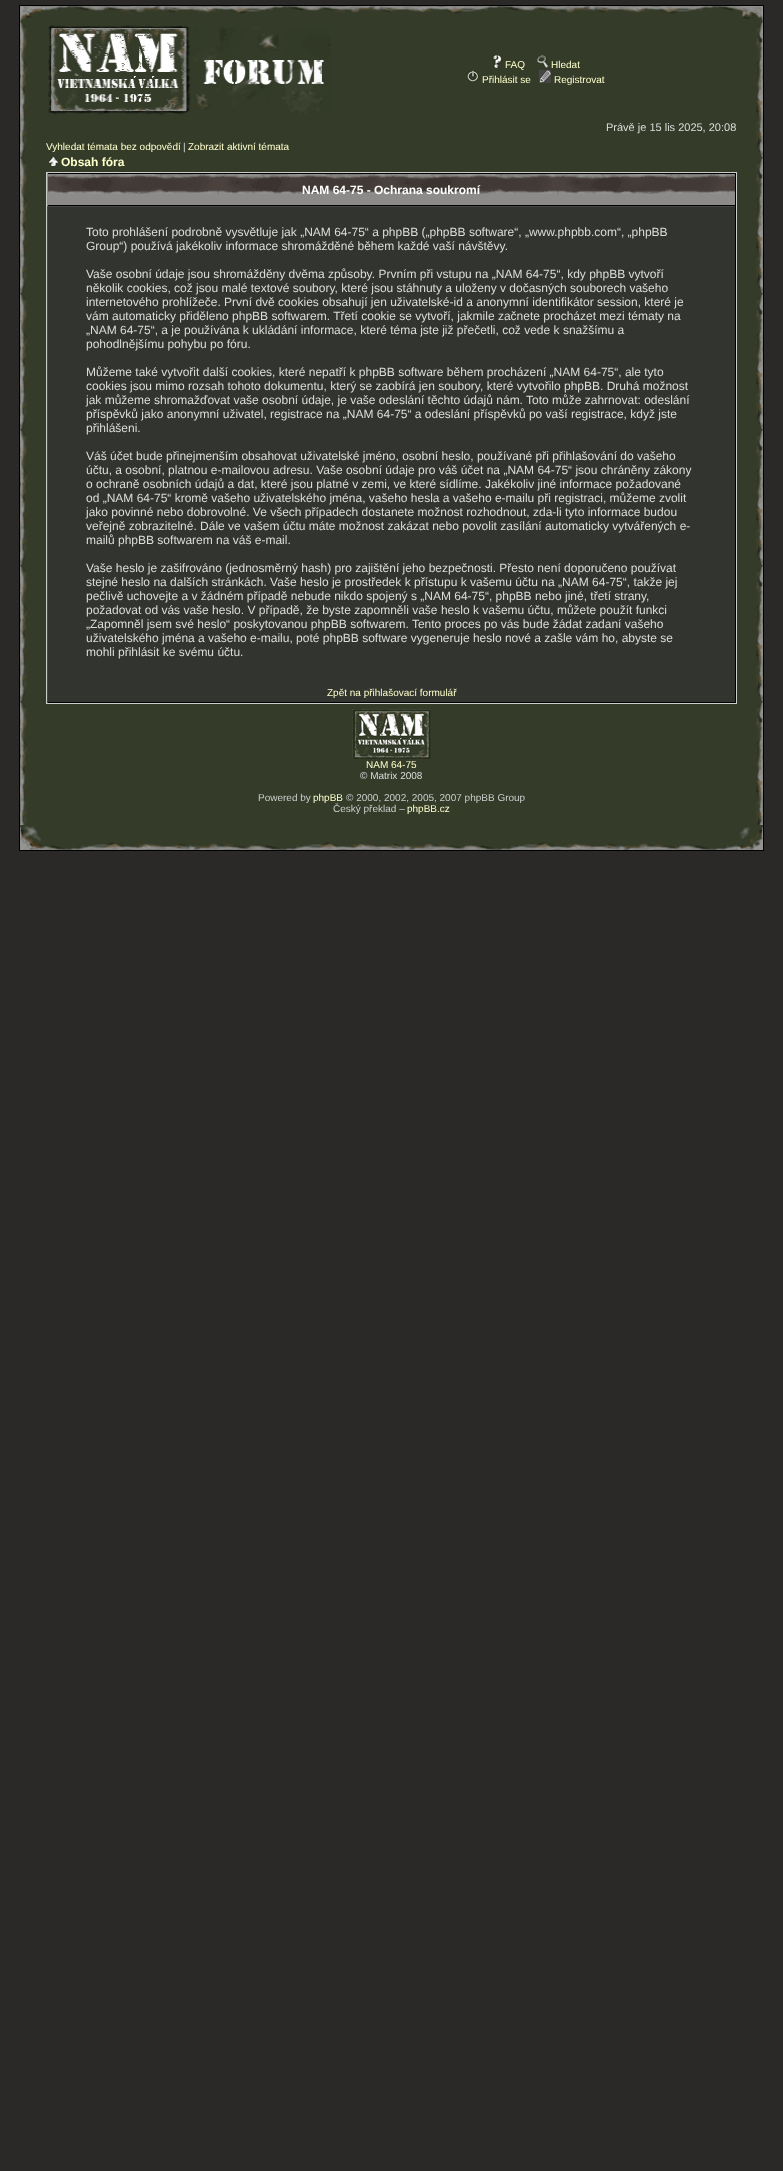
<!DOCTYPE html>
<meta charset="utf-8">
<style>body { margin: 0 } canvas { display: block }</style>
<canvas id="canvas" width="783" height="2171"></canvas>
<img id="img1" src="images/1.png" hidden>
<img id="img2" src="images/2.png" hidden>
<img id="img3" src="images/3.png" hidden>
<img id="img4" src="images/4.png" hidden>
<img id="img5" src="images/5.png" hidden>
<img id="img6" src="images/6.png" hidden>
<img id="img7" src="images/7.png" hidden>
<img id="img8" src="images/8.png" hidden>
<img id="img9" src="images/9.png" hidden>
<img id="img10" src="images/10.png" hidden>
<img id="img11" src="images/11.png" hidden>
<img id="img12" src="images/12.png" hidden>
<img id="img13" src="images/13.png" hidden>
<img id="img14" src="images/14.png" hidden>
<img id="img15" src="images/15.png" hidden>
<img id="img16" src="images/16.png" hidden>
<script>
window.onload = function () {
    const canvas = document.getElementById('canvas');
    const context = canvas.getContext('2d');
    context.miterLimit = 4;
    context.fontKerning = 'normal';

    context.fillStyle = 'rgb(42, 41, 39)';
    context.fillRect(0, 0, 783, 2171);
    context.strokeStyle = 'rgb(0, 0, 0)';
    context.strokeRect(19.5, 5.5, 744, 845);
    context.drawImage(document.getElementById('img1'), 20, 6, 25, 15);
    context.fillStyle = 'rgb(52, 60, 41)';
    context.fillRect(45, 14, 693, 7);
    context.drawImage(document.getElementById('img2'), 45, 6, 693, 8);
    context.drawImage(document.getElementById('img3'), 738, 6, 25, 15);
    context.fillRect(27, 21, 729, 804);
    context.drawImage(document.getElementById('img4'), 20, 21, 7, 804);
    context.drawImage(document.getElementById('img5'), 756, 21, 7, 804);
    context.drawImage(document.getElementById('img6'), 47, 25, 284, 90);
    context.drawImage(document.getElementById('img7'), 492, 55, 10, 13);
    context.drawImage(document.getElementById('img8'), 537, 55, 12, 13);
    context.drawImage(document.getElementById('img9'), 467, 70, 12, 12);
    context.drawImage(document.getElementById('img10'), 539, 70, 12, 13);
    context.drawImage(document.getElementById('img11'), 49, 157, 9, 9);
    context.strokeStyle = 'rgb(204, 204, 204)';
    context.strokeRect(46.5, 172.5, 690, 531);
    context.drawImage(document.getElementById('img12'), 48, 174, 687, 31);
    context.fillStyle = 'rgb(0, 0, 0)';
    context.fillRect(47, 173, 689, 1);
    context.fillRect(735, 173, 1, 33);
    context.fillRect(47, 205, 689, 1);
    context.fillStyle = 'rgb(140, 140, 140)';
    context.fillRect(47, 173, 1, 33);
    context.fillStyle = 'rgb(50, 53, 47)';
    context.fillRect(48, 207, 687, 495);
    context.fillStyle = 'rgb(70, 70, 67)';
    context.fillRect(47, 206, 689, 1);
    context.fillStyle = 'rgb(0, 0, 0)';
    context.fillRect(735, 206, 1, 497);
    context.fillRect(47, 702, 689, 1);
    context.fillStyle = 'rgb(70, 70, 67)';
    context.fillRect(47, 206, 1, 497);
    context.drawImage(document.getElementById('img13'), 352, 709, 79, 50);
    context.fillStyle = 'rgb(52, 60, 41)';
    context.fillRect(20, 825, 25, 1);
    context.drawImage(document.getElementById('img14'), 20, 826, 25, 24);
    context.fillRect(45, 825, 693, 17);
    context.drawImage(document.getElementById('img15'), 45, 842, 693, 8);
    context.fillRect(738, 825, 25, 1);
    context.drawImage(document.getElementById('img16'), 738, 826, 25, 24);
    context.font = '10px Liberation Sans';
    context.fillStyle = 'rgb(255, 255, 204)';
    context.fillText('FAQ', 505, 68);
    context.fillText('Hledat', 551, 68);
    context.fillText('Přihlásit se', 482, 83);
    context.fillText('Registrovat', 554, 83);
    context.font = '11px Liberation Sans';
    context.fillStyle = 'rgb(220, 220, 220)';
    context.fillText('Právě je 15 lis 2025, 20:08', 606, 131);
    context.font = '10px Liberation Sans';
    context.fillStyle = 'rgb(255, 255, 204)';
    context.fillText('Vyhledat témata bez odpovědí', 46, 150);
    context.fillStyle = 'rgb(220, 220, 220)';
    context.fillText('|', 183, 150);
    context.fillStyle = 'rgb(255, 255, 204)';
    context.fillText('Zobrazit aktivní témata', 188, 150);
    context.font = 'bold 12px Liberation Sans';
    context.fillText('Obsah fóra', 61, 166);
    context.fillStyle = 'rgb(255, 255, 255)';
    context.fillText('NAM 64-75 - Ochrana soukromí', 302, 194);
    context.font = '12px Liberation Sans';
    context.fillStyle = 'rgb(220, 220, 220)';
    context.fillText('Toto prohlášení podrobně vysvětluje jak „NAM 64-75“ a phpBB („phpBB software“, „www.phpbb.com“, „phpBB', 86, 236);
    context.fillText('Group“) používá jakékoliv informace shromážděné během každé vaší návštěvy.', 86, 250);
    context.fillText('Vaše osobní údaje jsou shromážděny dvěma způsoby. Prvním při vstupu na „NAM 64-75“, kdy phpBB vytvoří', 86, 278);
    context.fillText('několik cookies, což jsou malé textové soubory, které jsou stáhnuty a uloženy v dočasných souborech vašeho', 86, 292);
    context.fillText('internetového prohlížeče. První dvě cookies obsahují jen uživatelské-id a anonymní identifikátor session, které je', 86, 306);
    context.fillText('vám automaticky přiděleno phpBB softwarem. Třetí cookie se vytvoří, jakmile začnete procházet mezi tématy na', 86, 320);
    context.fillText('„NAM 64-75“, a je používána k ukládání informace, které téma jste již přečetli, což vede k snažšímu a', 86, 334);
    context.fillText('pohodlnějšímu pohybu po fóru.', 86, 348);
    context.fillText('Můžeme také vytvořit další cookies, které nepatří k phpBB software během procházení „NAM 64-75“, ale tyto', 86, 376);
    context.fillText('cookies jsou mimo rozsah tohoto dokumentu, který se zaobírá jen soubory, které vytvořilo phpBB. Druhá možnost', 86, 390);
    context.fillText('jak můžeme shromažďovat vaše osobní údaje, je vaše odeslání těchto údajů nám. Toto může zahrnovat: odeslání', 86, 404);
    context.fillText('příspěvků jako anonymní uživatel, registrace na „NAM 64-75“ a odeslání příspěvků po vaší registrace, když jste', 86, 418);
    context.fillText('přihlášeni.', 86, 432);
    context.fillText('Váš účet bude přinejmenším obsahovat uživatelské jméno, osobní heslo, používané při přihlašování do vašeho', 86, 460);
    context.fillText('účtu, a osobní, platnou e-mailovou adresu. Vaše osobní údaje pro váš účet na „NAM 64-75“ jsou chráněny zákony', 86, 474);
    context.fillText('o ochraně osobních údajů a dat, které jsou platné v zemi, ve které sídlíme. Jakékoliv jiné informace požadované', 86, 488);
    context.fillText('od „NAM 64-75“ kromě vašeho uživatelského jména, vašeho hesla a vašeho e-mailu při registraci, můžeme zvolit', 86, 502);
    context.fillText('jako povinné nebo dobrovolné. Ve všech případech dostanete možnost rozhodnout, zda-li tyto informace budou', 86, 516);
    context.fillText('veřejně zobrazitelné. Dále ve vašem účtu máte možnost zakázat nebo povolit zasílání automaticky vytvářených e-', 86, 530);
    context.fillText('mailů phpBB softwarem na váš e-mail.', 86, 544);
    context.fillText('Vaše heslo je zašifrováno (jednosměrný hash) pro zajištění jeho bezpečnosti. Přesto není doporučeno používat', 86, 572);
    context.fillText('stejné heslo na dalších stránkách. Vaše heslo je prostředek k přístupu k vašemu účtu na „NAM 64-75“, takže jej', 86, 586);
    context.fillText('pečlivě uchovejte a v žádném případě nebude nikdo spojený s „NAM 64-75“, phpBB nebo jiné, třetí strany,', 86, 600);
    context.fillText('požadovat od vás vaše heslo. V případě, že byste zapomněli vaše heslo k vašemu účtu, můžete použít funkci', 86, 614);
    context.fillText('„Zapomněl jsem své heslo“ poskytovanou phpBB softwarem. Tento proces po vás bude žádat zadaní vašeho', 86, 628);
    context.fillText('uživatelského jména a vašeho e-mailu, poté phpBB software vygeneruje heslo nové a zašle vám ho, abyste se', 86, 642);
    context.fillText('mohli přihlásit ke svému účtu.', 86, 656);
    context.font = '10px Liberation Sans';
    context.fillStyle = 'rgb(255, 255, 204)';
    context.fillText('Zpět na přihlašovací formulář', 327, 696);
    context.fillText('NAM 64-75', 366, 768);
    context.fillStyle = 'rgb(220, 220, 220)';
    context.fillText('© Matrix 2008', 360, 779);
    context.fillStyle = 'rgb(204, 204, 204)';
    context.fillText('Powered by', 258, 801);
    context.fillStyle = 'rgb(255, 255, 204)';
    context.fillText('phpBB', 313, 801);
    context.fillStyle = 'rgb(204, 204, 204)';
    context.fillText('© 2000, 2002, 2005, 2007 phpBB Group', 346, 801);
    context.fillText('Český překlad –', 333, 812);
    context.fillStyle = 'rgb(255, 255, 204)';
    context.fillText('phpBB.cz', 407, 812);
};
</script>
